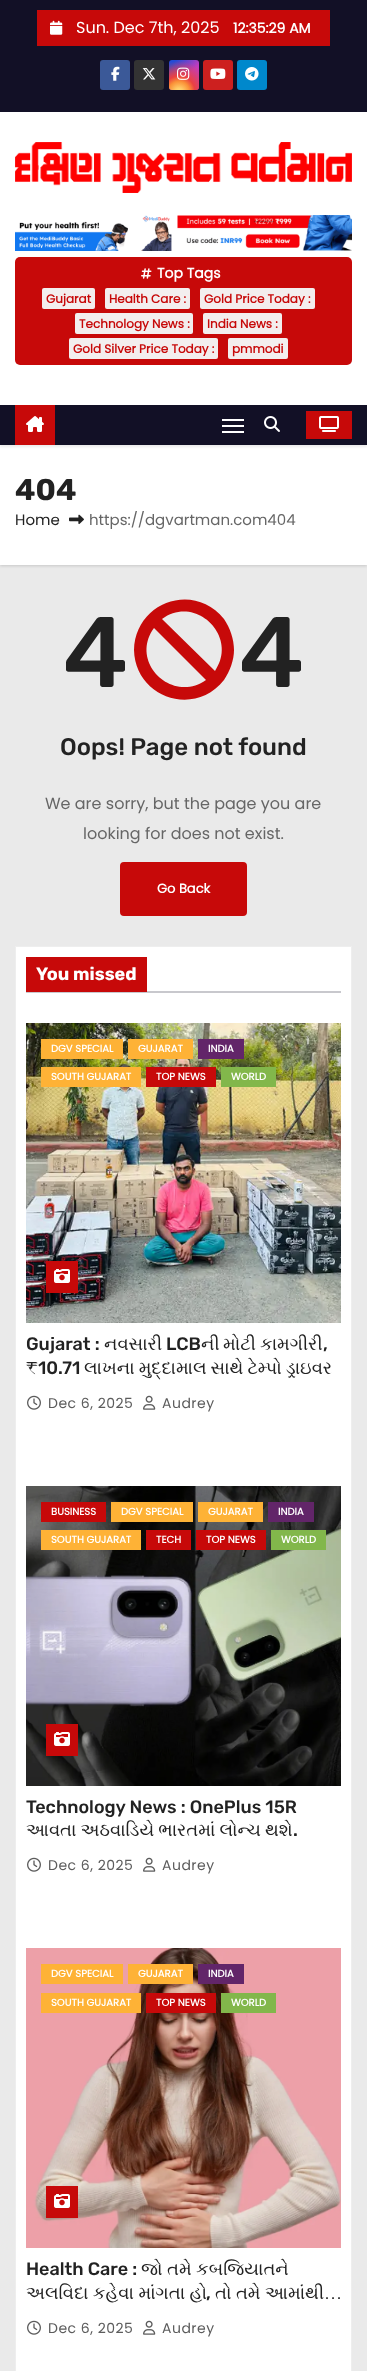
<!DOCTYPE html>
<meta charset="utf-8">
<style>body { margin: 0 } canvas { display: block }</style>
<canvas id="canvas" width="367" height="2371"></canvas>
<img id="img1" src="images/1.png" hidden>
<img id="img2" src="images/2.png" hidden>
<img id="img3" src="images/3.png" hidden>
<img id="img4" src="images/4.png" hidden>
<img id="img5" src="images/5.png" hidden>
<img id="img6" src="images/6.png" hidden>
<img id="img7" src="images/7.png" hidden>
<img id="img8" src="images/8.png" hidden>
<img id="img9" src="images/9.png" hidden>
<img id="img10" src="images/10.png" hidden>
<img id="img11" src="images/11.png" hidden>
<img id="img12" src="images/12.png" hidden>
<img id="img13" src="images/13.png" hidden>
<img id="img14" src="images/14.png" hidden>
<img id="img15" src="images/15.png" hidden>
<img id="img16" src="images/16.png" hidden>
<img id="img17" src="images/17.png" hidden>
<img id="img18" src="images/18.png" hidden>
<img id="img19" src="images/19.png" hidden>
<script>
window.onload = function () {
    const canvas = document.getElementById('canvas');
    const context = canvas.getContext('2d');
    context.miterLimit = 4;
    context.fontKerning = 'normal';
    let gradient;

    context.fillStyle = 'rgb(234, 234, 234)';
    context.fillRect(0, 0, 367, 2371);
    context.fillStyle = 'rgb(18, 16, 38)';
    context.fillRect(0, 0, 367, 112);
    context.fillStyle = 'rgb(199, 9, 9)';
    context.fillRect(37, 10, 293, 36);
    context.drawImage(document.getElementById('img1'), 50, 20, 13, 15);
    context.fillStyle = 'rgb(59, 89, 152)';
    context.beginPath();
    context.roundRect(100, 60, 30, 30, 3);
    context.fill();
    context.drawImage(document.getElementById('img2'), 111, 66, 9, 15);
    context.fillStyle = 'rgb(51, 51, 51)';
    context.beginPath();
    context.roundRect(134, 60, 30, 30, 3);
    context.fill();
    context.drawImage(document.getElementById('img3'), 142, 68, 14, 12);
    gradient = context.createLinearGradient(169, 60, 199, 90);
    gradient.addColorStop(0.12, 'rgb(35, 75, 215)');
    gradient.addColorStop(0.58, 'rgb(195, 60, 190)');
    context.fillStyle = gradient;
    context.beginPath();
    context.roundRect(169, 60, 30, 30, 3);
    context.fill();
    gradient = context.createRadialGradient(179, 92, 0, 179, 92, 38);
    gradient.addColorStop(0, 'rgb(255, 225, 125)');
    gradient.addColorStop(0.1, 'rgb(255, 205, 105)');
    gradient.addColorStop(0.28, 'rgb(250, 145, 55)');
    gradient.addColorStop(0.42, 'rgb(235, 65, 65)');
    gradient.addColorStop(0.82, 'rgba(235, 65, 65, 0)');
    context.fillStyle = gradient;
    context.beginPath();
    context.roundRect(169, 60, 30, 30, 3);
    context.fill();
    context.drawImage(document.getElementById('img4'), 177, 67, 13, 13);
    context.fillStyle = 'rgb(205, 32, 31)';
    context.beginPath();
    context.roundRect(203, 60, 30, 30, 3);
    context.fill();
    context.drawImage(document.getElementById('img5'), 210, 68, 16, 11);
    context.fillStyle = 'rgb(0, 136, 204)';
    context.beginPath();
    context.roundRect(237, 60, 30, 30, 3);
    context.fill();
    context.drawImage(document.getElementById('img6'), 245, 67, 14, 14);
    context.fillStyle = 'rgb(255, 255, 255)';
    context.fillRect(0, 112, 367, 293);
    context.drawImage(document.getElementById('img7'), 15, 142, 337, 51);
    context.drawImage(document.getElementById('img8'), 15, 215, 337, 36);
    context.fillStyle = 'rgb(199, 9, 9)';
    context.beginPath();
    context.roundRect(15, 257, 337, 108, 5);
    context.fill();
    context.drawImage(document.getElementById('img9'), 141, 268, 11, 11);
    context.fillStyle = 'rgb(243, 238, 238)';
    context.beginPath();
    context.roundRect(42, 288, 53, 21, 2);
    context.fill();
    context.beginPath();
    context.roundRect(105, 288, 85, 21, 2);
    context.fill();
    context.beginPath();
    context.roundRect(200, 288, 115, 21, 2);
    context.fill();
    context.beginPath();
    context.roundRect(75, 313, 118, 21, 2);
    context.fill();
    context.beginPath();
    context.roundRect(203, 313, 79, 21, 2);
    context.fill();
    context.beginPath();
    context.roundRect(69, 338, 149, 21, 2);
    context.fill();
    context.beginPath();
    context.roundRect(228, 338, 60, 21, 2);
    context.fill();
    context.fillStyle = 'rgba(0, 0, 0, 0.15)';
    context.filter = 'blur(1.5px)';
    context.beginPath();
    context.rect(0, 446, 367, 120);
    context.fill();
    context.filter = 'none';
    context.fillStyle = 'rgb(255, 255, 255)';
    context.fillRect(0, 445, 367, 120);
    context.fillStyle = 'rgba(0, 0, 0, 0.08)';
    context.filter = 'blur(1px)';
    context.beginPath();
    context.rect(0, 407, 367, 40);
    context.fill();
    context.filter = 'none';
    context.fillStyle = 'rgb(18, 16, 38)';
    context.fillRect(0, 405, 367, 40);
    context.fillStyle = 'rgb(199, 9, 9)';
    context.fillRect(15, 405, 40, 40);
    context.drawImage(document.getElementById('img10'), 26, 416, 18, 16);
    context.fillStyle = 'rgb(255, 255, 255)';
    context.fillRect(222, 419, 22, 2);
    context.fillRect(222, 425, 22, 2);
    context.fillRect(222, 431, 22, 2);
    context.drawImage(document.getElementById('img11'), 264, 416, 16, 16);
    context.fillStyle = 'rgb(199, 9, 9)';
    context.fillRect(306, 411, 46, 28);
    context.drawImage(document.getElementById('img12'), 319, 416, 20, 16);
    context.drawImage(document.getElementById('img13'), 69, 514, 15, 10);
    context.beginPath();
    context.moveTo(206, 680);
    context.lineTo(154, 628);
    context.bezierCurveTo(129, 662, 172, 704, 206, 680);
    context.closePath();
    context.moveTo(215, 671);
    context.bezierCurveTo(239, 637, 196, 594, 162, 619);
    context.closePath();
    context.moveTo(134, 650);
    context.bezierCurveTo(135, 602, 194, 581, 224, 619);
    context.bezierCurveTo(230, 628, 234, 639, 234, 650);
    context.bezierCurveTo(234, 660, 230, 671, 224, 680);
    context.bezierCurveTo(194, 718, 135, 697, 134, 650);
    context.closePath();
    context.fill();
    context.beginPath();
    context.roundRect(121, 863, 125, 52, 3);
    context.fill();
    context.strokeStyle = 'rgb(199, 9, 9)';
    context.lineWidth = 2;
    context.stroke();
    context.fillStyle = 'rgb(255, 255, 255)';
    context.beginPath();
    context.rect(15.5, 946.5, 336, 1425);
    context.fill();
    context.strokeStyle = 'rgb(238, 238, 238)';
    context.lineWidth = 1;
    context.stroke();
    context.fillStyle = 'rgb(200, 200, 205)';
    context.fillRect(26, 991, 315, 2);
    context.fillStyle = 'rgb(199, 9, 9)';
    context.fillRect(26, 957, 121, 35);
    context.drawImage(document.getElementById('img14'), 26, 1023, 315, 300);
    context.fillStyle = 'rgb(254, 178, 54)';
    context.fillRect(41, 1039, 82, 20);
    context.fillRect(128, 1039, 65, 20);
    context.fillStyle = 'rgb(98, 37, 105)';
    context.fillRect(198, 1039, 46, 20);
    context.fillStyle = 'rgb(254, 178, 54)';
    context.fillRect(41, 1067, 100, 20);
    context.fillStyle = 'rgb(199, 9, 9)';
    context.fillRect(146, 1067, 70, 20);
    context.fillStyle = 'rgb(130, 183, 75)';
    context.fillRect(221, 1067, 55, 20);
    context.fillStyle = 'rgb(199, 9, 9)';
    context.fillRect(46, 1261, 32, 32);
    context.drawImage(document.getElementById('img15'), 54, 1269, 16, 14);
    context.drawImage(document.getElementById('img16'), 27, 1395, 14, 15);
    context.drawImage(document.getElementById('img17'), 143, 1395, 13, 15);
    context.drawImage(document.getElementById('img18'), 26, 1486, 315, 300);
    context.fillRect(41, 1502, 65, 20);
    context.fillStyle = 'rgb(254, 178, 54)';
    context.fillRect(111, 1502, 82, 20);
    context.fillRect(198, 1502, 65, 20);
    context.fillStyle = 'rgb(98, 37, 105)';
    context.fillRect(268, 1502, 46, 20);
    context.fillStyle = 'rgb(254, 178, 54)';
    context.fillRect(41, 1530, 100, 20);
    context.fillStyle = 'rgb(199, 9, 9)';
    context.fillRect(146, 1530, 45, 20);
    context.fillRect(196, 1530, 70, 20);
    context.fillStyle = 'rgb(130, 183, 75)';
    context.fillRect(271, 1530, 55, 20);
    context.fillStyle = 'rgb(199, 9, 9)';
    context.fillRect(46, 1724, 32, 32);
    context.drawImage(document.getElementById('img15'), 54, 1732, 16, 14);
    context.drawImage(document.getElementById('img16'), 27, 1857, 14, 15);
    context.drawImage(document.getElementById('img17'), 143, 1857, 13, 15);
    context.drawImage(document.getElementById('img19'), 26, 1948, 315, 300);
    context.fillStyle = 'rgb(254, 178, 54)';
    context.fillRect(41, 1964, 82, 20);
    context.fillRect(128, 1964, 65, 20);
    context.fillStyle = 'rgb(98, 37, 105)';
    context.fillRect(198, 1964, 46, 20);
    context.fillStyle = 'rgb(254, 178, 54)';
    context.fillRect(41, 1993, 100, 20);
    context.fillStyle = 'rgb(199, 9, 9)';
    context.fillRect(146, 1993, 70, 20);
    context.fillStyle = 'rgb(130, 183, 75)';
    context.fillRect(221, 1993, 55, 20);
    context.fillStyle = 'rgb(199, 9, 9)';
    context.fillRect(46, 2186, 32, 32);
    context.drawImage(document.getElementById('img15'), 54, 2194, 16, 14);
    context.drawImage(document.getElementById('img16'), 27, 2320, 14, 15);
    context.drawImage(document.getElementById('img17'), 143, 2320, 13, 15);
    context.font = '16px Poppins';
    context.fillStyle = 'rgb(255, 255, 255)';
    context.fillText('Sun. Dec 7th, 2025', 76, 33);
    context.font = 'bold 14px Poppins';
    context.fillText('12:35:29 AM', 233, 33);
    context.fillText('Top Tags', 157, 278);
    context.font = 'bold 12px Poppins';
    context.fillStyle = 'rgb(199, 9, 9)';
    context.fillText('Gujarat', 46, 303);
    context.fillText('Health Care :', 109, 303);
    context.fillText('Gold Price Today :', 204, 303);
    context.fillText('Technology News :', 79, 328);
    context.fillText('India News :', 207, 328);
    context.fillText('Gold Silver Price Today :', 73, 353);
    context.fillText('pmmodi', 232, 353);
    context.font = 'bold 30px Rubik';
    context.fillStyle = 'rgb(34, 34, 34)';
    context.fillText('404', 15, 500);
    context.font = '15px Poppins';
    context.fillText('Home', 15, 525);
    context.fillStyle = 'rgb(102, 102, 102)';
    context.fillText('https://dgvartman.com404', 89, 525);
    context.font = '500 100px Rubik';
    context.fillStyle = 'rgb(34, 34, 34)';
    context.fillText('4', 63, 687);
    context.fillText('4', 239, 687);
    context.font = '500 24px Rubik';
    context.fillText('Oops! Page not found', 60, 755);
    context.font = '16px Poppins';
    context.fillStyle = 'rgb(102, 102, 102)';
    context.fillText('We are sorry, but the page you are', 45, 809);
    context.fillText('looking for does not exist.', 83, 839);
    context.font = 'bold 13px Poppins';
    context.fillStyle = 'rgb(255, 255, 255)';
    context.fillText('Go Back', 157, 893);
    context.font = 'bold 18px Rubik';
    context.fillText('You missed', 36, 980);
    context.font = 'bold 10px Poppins';
    context.fillText('DGV SPECIAL', 51, 1052);
    context.fillText('GUJARAT', 138, 1052);
    context.fillText('INDIA', 208, 1052);
    context.fillText('SOUTH GUJARAT', 51, 1080);
    context.fillText('TOP NEWS', 156, 1080);
    context.fillText('WORLD', 231, 1080);
    context.font = '500 18px Rubik';
    context.fillStyle = 'rgb(34, 34, 34)';
    context.fillText('Gujarat :', 26, 1350);
    context.font = '18px FreeSerif';
    context.fillText('નવસારી', 104, 1350);
    context.font = '500 18px Rubik';
    context.fillText('LCB', 166, 1350);
    context.font = '18px FreeSerif';
    context.fillText('ની', 201, 1350);
    context.fillText('મોટી', 223, 1350);
    context.fillText('કામગીરી', 260, 1350);
    context.font = '500 18px Rubik';
    context.fillText(',', 323, 1350);
    context.font = '18px FreeSerif';
    context.fillText('₹', 26, 1374);
    context.font = '500 18px Rubik';
    context.fillText('10.71', 38, 1374);
    context.wordSpacing = '-0.5px';
    context.font = '18px FreeSerif';
    context.fillText('લાખના મુદ્દામાલ સાથે ટેમ્પો ડ્રાઇવર', 84, 1374);
    context.letterSpacing = '0.5px';
    context.wordSpacing = '0px';
    context.font = '14px Poppins';
    context.fillStyle = 'rgb(92, 92, 92)';
    context.fillText('Dec 6, 2025', 48, 1408);
    context.fillText('Audrey', 162, 1408);
    context.letterSpacing = '0px';
    context.font = 'bold 10px Poppins';
    context.fillStyle = 'rgb(255, 255, 255)';
    context.fillText('BUSINESS', 51, 1515);
    context.fillText('DGV SPECIAL', 121, 1515);
    context.fillText('GUJARAT', 208, 1515);
    context.fillText('INDIA', 278, 1515);
    context.fillText('SOUTH GUJARAT', 51, 1543);
    context.fillText('TECH', 156, 1543);
    context.fillText('TOP NEWS', 206, 1543);
    context.fillText('WORLD', 281, 1543);
    context.font = '500 18px Rubik';
    context.fillStyle = 'rgb(34, 34, 34)';
    context.fillText('Technology News : OnePlus 15R', 26, 1813);
    context.wordSpacing = '-0.5px';
    context.font = '18px FreeSerif';
    context.fillText('આવતા અઠવાડિયે ભારતમાં લોન્ચ થશે', 26, 1836);
    context.wordSpacing = '0px';
    context.font = '500 18px Rubik';
    context.fillText('.', 293, 1836);
    context.letterSpacing = '0.5px';
    context.font = '14px Poppins';
    context.fillStyle = 'rgb(92, 92, 92)';
    context.fillText('Dec 6, 2025', 48, 1870);
    context.fillText('Audrey', 162, 1870);
    context.letterSpacing = '0px';
    context.font = 'bold 10px Poppins';
    context.fillStyle = 'rgb(255, 255, 255)';
    context.fillText('DGV SPECIAL', 51, 1977);
    context.fillText('GUJARAT', 138, 1977);
    context.fillText('INDIA', 208, 1977);
    context.fillText('SOUTH GUJARAT', 51, 2006);
    context.fillText('TOP NEWS', 156, 2006);
    context.fillText('WORLD', 231, 2006);
    context.font = '500 18px Rubik';
    context.fillStyle = 'rgb(34, 34, 34)';
    context.fillText('Health Care :', 26, 2275);
    context.font = '18px FreeSerif';
    context.fillText('જો', 141, 2275);
    context.fillText('તમે', 167, 2275);
    context.fillText('કબજિયાતને', 196, 2275);
    context.fillText('અલવિદા કહેવા માંગતા હો', 26, 2299);
    context.font = '500 18px Rubik';
    context.fillText(',', 206, 2299);
    context.font = '18px FreeSerif';
    context.fillText('તો તમે આમાંથી…', 215, 2299);
    context.letterSpacing = '0.5px';
    context.font = '14px Poppins';
    context.fillStyle = 'rgb(92, 92, 92)';
    context.fillText('Dec 6, 2025', 48, 2333);
    context.fillText('Audrey', 162, 2333);
};
</script>
